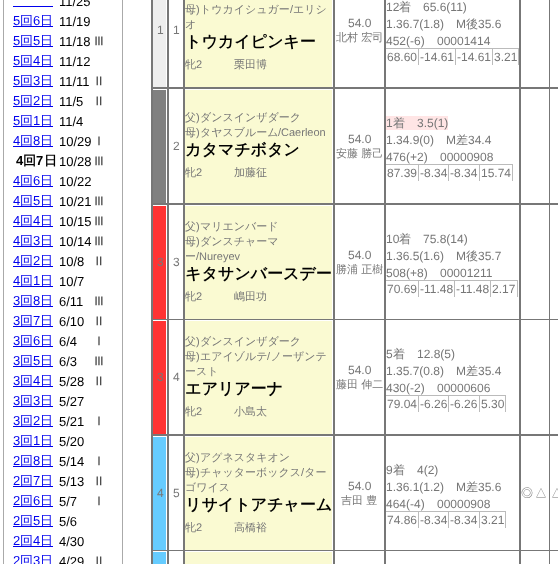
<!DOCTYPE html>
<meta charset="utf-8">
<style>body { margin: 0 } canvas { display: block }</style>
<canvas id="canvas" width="558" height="564"></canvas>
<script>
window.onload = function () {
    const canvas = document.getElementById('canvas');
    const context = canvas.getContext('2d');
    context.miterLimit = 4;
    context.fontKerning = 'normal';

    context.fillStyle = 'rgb(255, 255, 255)';
    context.fillRect(0, 0, 558, 564);
    context.fillStyle = 'rgb(170, 170, 170)';
    context.fillRect(3, 0, 120, 564);
    context.fillStyle = 'rgb(255, 255, 255)';
    context.fillRect(4, 0, 118, 564);
    context.fillStyle = 'rgb(0, 0, 238)';
    context.fillRect(13, 6, 40, 1);
    context.fillRect(13, 26, 40, 1);
    context.fillRect(13, 46, 40, 1);
    context.fillRect(13, 66, 40, 1);
    context.fillRect(13, 86, 40, 1);
    context.fillRect(13, 106, 40, 1);
    context.fillRect(13, 126, 40, 1);
    context.fillRect(13, 146, 40, 1);
    context.fillRect(13, 186, 40, 1);
    context.fillRect(13, 206, 40, 1);
    context.fillRect(13, 226, 40, 1);
    context.fillRect(13, 246, 40, 1);
    context.fillRect(13, 266, 40, 1);
    context.fillRect(13, 286, 40, 1);
    context.fillRect(13, 306, 40, 1);
    context.fillRect(13, 326, 40, 1);
    context.fillRect(13, 346, 40, 1);
    context.fillRect(13, 366, 40, 1);
    context.fillRect(13, 386, 40, 1);
    context.fillRect(13, 406, 40, 1);
    context.fillRect(13, 426, 40, 1);
    context.fillRect(13, 446, 40, 1);
    context.fillRect(13, 466, 40, 1);
    context.fillRect(13, 486, 40, 1);
    context.fillRect(13, 506, 40, 1);
    context.fillRect(13, 526, 40, 1);
    context.fillRect(13, 546, 40, 1);
    context.fillStyle = 'rgb(119, 119, 119)';
    context.fillRect(152, 319, 406, 1);
    context.fillRect(152, 550, 406, 1);
    context.fillRect(151, 0, 2, 564);
    context.fillStyle = 'rgb(238, 238, 238)';
    context.fillRect(153, 0, 13, 87);
    context.fillStyle = 'rgb(250, 250, 210)';
    context.fillRect(185, 0, 147, 87);
    context.fillStyle = 'rgb(187, 187, 187)';
    context.fillRect(386, 48, 133, 1);
    context.fillRect(418, 48, 1, 17);
    context.fillRect(455, 48, 1, 17);
    context.fillRect(492, 48, 1, 17);
    context.fillRect(518, 48, 1, 17);
    context.fillStyle = 'rgb(128, 128, 128)';
    context.fillRect(153, 90, 13, 113);
    context.fillStyle = 'rgb(119, 119, 119)';
    context.fillRect(549, 435, 1, 129);
    context.fillRect(549, 0, 1, 436);
    context.fillRect(151, 87, 407, 2);
    context.fillRect(151, 203, 407, 2);
    context.fillRect(167, 550, 2, 14);
    context.fillRect(151, 434, 407, 2);
    context.fillRect(167, 319, 2, 233);
    context.fillRect(167, 203, 2, 118);
    context.fillRect(167, 0, 2, 205);
    context.fillRect(183, 550, 2, 14);
    context.fillRect(183, 319, 2, 233);
    context.fillRect(183, 203, 2, 118);
    context.fillRect(183, 0, 2, 205);
    context.fillStyle = 'rgb(250, 250, 210)';
    context.fillRect(185, 90, 147, 113);
    context.fillStyle = 'rgb(119, 119, 119)';
    context.fillRect(333, 550, 2, 14);
    context.fillRect(333, 319, 2, 233);
    context.fillRect(333, 203, 2, 118);
    context.fillRect(333, 0, 2, 205);
    context.fillRect(384, 550, 2, 14);
    context.fillRect(384, 319, 2, 233);
    context.fillRect(384, 203, 2, 118);
    context.fillRect(384, 0, 2, 205);
    context.fillRect(519, 550, 2, 14);
    context.fillRect(519, 319, 2, 233);
    context.fillRect(519, 203, 2, 118);
    context.fillRect(519, 0, 2, 205);
    context.fillStyle = 'rgb(255, 229, 229)';
    context.fillRect(386, 116, 62, 14);
    context.fillStyle = 'rgb(187, 187, 187)';
    context.fillRect(386, 164, 127, 1);
    context.fillRect(418, 164, 1, 17);
    context.fillRect(448, 164, 1, 17);
    context.fillRect(479, 164, 1, 17);
    context.fillRect(512, 164, 1, 17);
    context.fillStyle = 'rgb(255, 51, 51)';
    context.fillRect(153, 206, 13, 113);
    context.fillStyle = 'rgb(250, 250, 210)';
    context.fillRect(185, 206, 147, 113);
    context.fillStyle = 'rgb(187, 187, 187)';
    context.fillRect(386, 280, 132, 1);
    context.fillRect(418, 280, 1, 17);
    context.fillRect(454, 280, 1, 17);
    context.fillRect(490, 280, 1, 17);
    context.fillRect(517, 280, 1, 17);
    context.fillStyle = 'rgb(255, 51, 51)';
    context.fillRect(153, 321, 13, 113);
    context.fillStyle = 'rgb(250, 250, 210)';
    context.fillRect(185, 321, 147, 113);
    context.fillStyle = 'rgb(187, 187, 187)';
    context.fillRect(386, 395, 120, 1);
    context.fillRect(418, 395, 1, 17);
    context.fillRect(448, 395, 1, 17);
    context.fillRect(479, 395, 1, 17);
    context.fillRect(505, 395, 1, 17);
    context.fillStyle = 'rgb(102, 204, 255)';
    context.fillRect(153, 552, 13, 12);
    context.fillStyle = 'rgb(250, 250, 210)';
    context.fillRect(185, 552, 147, 12);
    context.fillStyle = 'rgb(102, 204, 255)';
    context.fillRect(153, 437, 13, 113);
    context.fillStyle = 'rgb(250, 250, 210)';
    context.fillRect(185, 437, 147, 113);
    context.fillStyle = 'rgb(187, 187, 187)';
    context.fillRect(386, 511, 120, 1);
    context.fillRect(418, 511, 1, 17);
    context.fillRect(448, 511, 1, 17);
    context.fillRect(479, 511, 1, 17);
    context.fillRect(505, 511, 1, 17);
    context.font = '13px Liberation Sans';
    context.fillStyle = 'rgb(0, 0, 0)';
    context.fillText('11/25', 59, 6);
    context.fillStyle = 'rgb(0, 0, 238)';
    context.fillText('5', 13, 25);
    context.font = '500 13px WenQuanYi Zen Hei';
    context.fillText('回', 20, 25);
    context.font = '13px Liberation Sans';
    context.fillText('6', 33, 25);
    context.font = '500 13px WenQuanYi Zen Hei';
    context.fillText('日', 40, 25);
    context.font = '13px Liberation Sans';
    context.fillStyle = 'rgb(0, 0, 0)';
    context.fillText('11/19', 59, 26);
    context.fillStyle = 'rgb(0, 0, 238)';
    context.fillText('5', 13, 45);
    context.font = '500 13px WenQuanYi Zen Hei';
    context.fillText('回', 20, 45);
    context.font = '13px Liberation Sans';
    context.fillText('5', 33, 45);
    context.font = '500 13px WenQuanYi Zen Hei';
    context.fillText('日', 40, 45);
    context.font = '13px Liberation Sans';
    context.fillStyle = 'rgb(0, 0, 0)';
    context.fillText('11/18', 59, 46);
    context.font = '500 12px WenQuanYi Zen Hei';
    context.fillText('Ⅲ', 93, 45);
    context.font = '13px Liberation Sans';
    context.fillStyle = 'rgb(0, 0, 238)';
    context.fillText('5', 13, 65);
    context.font = '500 13px WenQuanYi Zen Hei';
    context.fillText('回', 20, 65);
    context.font = '13px Liberation Sans';
    context.fillText('4', 33, 65);
    context.font = '500 13px WenQuanYi Zen Hei';
    context.fillText('日', 40, 65);
    context.font = '13px Liberation Sans';
    context.fillStyle = 'rgb(0, 0, 0)';
    context.fillText('11/12', 59, 66);
    context.fillStyle = 'rgb(0, 0, 238)';
    context.fillText('5', 13, 85);
    context.font = '500 13px WenQuanYi Zen Hei';
    context.fillText('回', 20, 85);
    context.font = '13px Liberation Sans';
    context.fillText('3', 33, 85);
    context.font = '500 13px WenQuanYi Zen Hei';
    context.fillText('日', 40, 85);
    context.font = '13px Liberation Sans';
    context.fillStyle = 'rgb(0, 0, 0)';
    context.fillText('11/11', 59, 86);
    context.font = '500 12px WenQuanYi Zen Hei';
    context.fillText('Ⅱ', 93, 85);
    context.font = '13px Liberation Sans';
    context.fillStyle = 'rgb(0, 0, 238)';
    context.fillText('5', 13, 105);
    context.font = '500 13px WenQuanYi Zen Hei';
    context.fillText('回', 20, 105);
    context.font = '13px Liberation Sans';
    context.fillText('2', 33, 105);
    context.font = '500 13px WenQuanYi Zen Hei';
    context.fillText('日', 40, 105);
    context.font = '13px Liberation Sans';
    context.fillStyle = 'rgb(0, 0, 0)';
    context.fillText('11/5', 59, 106);
    context.font = '500 12px WenQuanYi Zen Hei';
    context.fillText('Ⅱ', 93, 105);
    context.font = '13px Liberation Sans';
    context.fillStyle = 'rgb(0, 0, 238)';
    context.fillText('5', 13, 125);
    context.font = '500 13px WenQuanYi Zen Hei';
    context.fillText('回', 20, 125);
    context.font = '13px Liberation Sans';
    context.fillText('1', 33, 125);
    context.font = '500 13px WenQuanYi Zen Hei';
    context.fillText('日', 40, 125);
    context.font = '13px Liberation Sans';
    context.fillStyle = 'rgb(0, 0, 0)';
    context.fillText('11/4', 59, 126);
    context.fillStyle = 'rgb(0, 0, 238)';
    context.fillText('4', 13, 145);
    context.font = '500 13px WenQuanYi Zen Hei';
    context.fillText('回', 20, 145);
    context.font = '13px Liberation Sans';
    context.fillText('8', 33, 145);
    context.font = '500 13px WenQuanYi Zen Hei';
    context.fillText('日', 40, 145);
    context.font = '13px Liberation Sans';
    context.fillStyle = 'rgb(0, 0, 0)';
    context.fillText('10/29', 59, 146);
    context.font = '500 12px WenQuanYi Zen Hei';
    context.fillText('Ⅰ', 93, 145);
    context.font = 'bold 13px Liberation Sans';
    context.fillText('4', 16, 165);
    context.font = 'bold 13px WenQuanYi Zen Hei';
    context.fillText('回', 23, 165);
    context.font = 'bold 13px Liberation Sans';
    context.fillText('7', 36, 165);
    context.font = 'bold 13px WenQuanYi Zen Hei';
    context.fillText('日', 44, 165);
    context.font = '13px Liberation Sans';
    context.fillText('10/28', 59, 166);
    context.font = '500 12px WenQuanYi Zen Hei';
    context.fillText('Ⅲ', 93, 165);
    context.font = '13px Liberation Sans';
    context.fillStyle = 'rgb(0, 0, 238)';
    context.fillText('4', 13, 185);
    context.font = '500 13px WenQuanYi Zen Hei';
    context.fillText('回', 20, 185);
    context.font = '13px Liberation Sans';
    context.fillText('6', 33, 185);
    context.font = '500 13px WenQuanYi Zen Hei';
    context.fillText('日', 40, 185);
    context.font = '13px Liberation Sans';
    context.fillStyle = 'rgb(0, 0, 0)';
    context.fillText('10/22', 59, 186);
    context.fillStyle = 'rgb(0, 0, 238)';
    context.fillText('4', 13, 205);
    context.font = '500 13px WenQuanYi Zen Hei';
    context.fillText('回', 20, 205);
    context.font = '13px Liberation Sans';
    context.fillText('5', 33, 205);
    context.font = '500 13px WenQuanYi Zen Hei';
    context.fillText('日', 40, 205);
    context.font = '13px Liberation Sans';
    context.fillStyle = 'rgb(0, 0, 0)';
    context.fillText('10/21', 59, 206);
    context.font = '500 12px WenQuanYi Zen Hei';
    context.fillText('Ⅲ', 93, 205);
    context.font = '13px Liberation Sans';
    context.fillStyle = 'rgb(0, 0, 238)';
    context.fillText('4', 13, 225);
    context.font = '500 13px WenQuanYi Zen Hei';
    context.fillText('回', 20, 225);
    context.font = '13px Liberation Sans';
    context.fillText('4', 33, 225);
    context.font = '500 13px WenQuanYi Zen Hei';
    context.fillText('日', 40, 225);
    context.font = '13px Liberation Sans';
    context.fillStyle = 'rgb(0, 0, 0)';
    context.fillText('10/15', 59, 226);
    context.font = '500 12px WenQuanYi Zen Hei';
    context.fillText('Ⅲ', 93, 225);
    context.font = '13px Liberation Sans';
    context.fillStyle = 'rgb(0, 0, 238)';
    context.fillText('4', 13, 245);
    context.font = '500 13px WenQuanYi Zen Hei';
    context.fillText('回', 20, 245);
    context.font = '13px Liberation Sans';
    context.fillText('3', 33, 245);
    context.font = '500 13px WenQuanYi Zen Hei';
    context.fillText('日', 40, 245);
    context.font = '13px Liberation Sans';
    context.fillStyle = 'rgb(0, 0, 0)';
    context.fillText('10/14', 59, 246);
    context.font = '500 12px WenQuanYi Zen Hei';
    context.fillText('Ⅲ', 93, 245);
    context.font = '13px Liberation Sans';
    context.fillStyle = 'rgb(0, 0, 238)';
    context.fillText('4', 13, 265);
    context.font = '500 13px WenQuanYi Zen Hei';
    context.fillText('回', 20, 265);
    context.font = '13px Liberation Sans';
    context.fillText('2', 33, 265);
    context.font = '500 13px WenQuanYi Zen Hei';
    context.fillText('日', 40, 265);
    context.font = '13px Liberation Sans';
    context.fillStyle = 'rgb(0, 0, 0)';
    context.fillText('10/8', 59, 266);
    context.font = '500 12px WenQuanYi Zen Hei';
    context.fillText('Ⅱ', 93, 265);
    context.font = '13px Liberation Sans';
    context.fillStyle = 'rgb(0, 0, 238)';
    context.fillText('4', 13, 285);
    context.font = '500 13px WenQuanYi Zen Hei';
    context.fillText('回', 20, 285);
    context.font = '13px Liberation Sans';
    context.fillText('1', 33, 285);
    context.font = '500 13px WenQuanYi Zen Hei';
    context.fillText('日', 40, 285);
    context.font = '13px Liberation Sans';
    context.fillStyle = 'rgb(0, 0, 0)';
    context.fillText('10/7', 59, 286);
    context.fillStyle = 'rgb(0, 0, 238)';
    context.fillText('3', 13, 305);
    context.font = '500 13px WenQuanYi Zen Hei';
    context.fillText('回', 20, 305);
    context.font = '13px Liberation Sans';
    context.fillText('8', 33, 305);
    context.font = '500 13px WenQuanYi Zen Hei';
    context.fillText('日', 40, 305);
    context.font = '13px Liberation Sans';
    context.fillStyle = 'rgb(0, 0, 0)';
    context.fillText('6/11', 59, 306);
    context.font = '500 12px WenQuanYi Zen Hei';
    context.fillText('Ⅲ', 93, 305);
    context.font = '13px Liberation Sans';
    context.fillStyle = 'rgb(0, 0, 238)';
    context.fillText('3', 13, 325);
    context.font = '500 13px WenQuanYi Zen Hei';
    context.fillText('回', 20, 325);
    context.font = '13px Liberation Sans';
    context.fillText('7', 33, 325);
    context.font = '500 13px WenQuanYi Zen Hei';
    context.fillText('日', 40, 325);
    context.font = '13px Liberation Sans';
    context.fillStyle = 'rgb(0, 0, 0)';
    context.fillText('6/10', 59, 326);
    context.font = '500 12px WenQuanYi Zen Hei';
    context.fillText('Ⅱ', 93, 325);
    context.font = '13px Liberation Sans';
    context.fillStyle = 'rgb(0, 0, 238)';
    context.fillText('3', 13, 345);
    context.font = '500 13px WenQuanYi Zen Hei';
    context.fillText('回', 20, 345);
    context.font = '13px Liberation Sans';
    context.fillText('6', 33, 345);
    context.font = '500 13px WenQuanYi Zen Hei';
    context.fillText('日', 40, 345);
    context.font = '13px Liberation Sans';
    context.fillStyle = 'rgb(0, 0, 0)';
    context.fillText('6/4', 59, 346);
    context.font = '500 12px WenQuanYi Zen Hei';
    context.fillText('Ⅰ', 93, 345);
    context.font = '13px Liberation Sans';
    context.fillStyle = 'rgb(0, 0, 238)';
    context.fillText('3', 13, 365);
    context.font = '500 13px WenQuanYi Zen Hei';
    context.fillText('回', 20, 365);
    context.font = '13px Liberation Sans';
    context.fillText('5', 33, 365);
    context.font = '500 13px WenQuanYi Zen Hei';
    context.fillText('日', 40, 365);
    context.font = '13px Liberation Sans';
    context.fillStyle = 'rgb(0, 0, 0)';
    context.fillText('6/3', 59, 366);
    context.font = '500 12px WenQuanYi Zen Hei';
    context.fillText('Ⅲ', 93, 365);
    context.font = '13px Liberation Sans';
    context.fillStyle = 'rgb(0, 0, 238)';
    context.fillText('3', 13, 385);
    context.font = '500 13px WenQuanYi Zen Hei';
    context.fillText('回', 20, 385);
    context.font = '13px Liberation Sans';
    context.fillText('4', 33, 385);
    context.font = '500 13px WenQuanYi Zen Hei';
    context.fillText('日', 40, 385);
    context.font = '13px Liberation Sans';
    context.fillStyle = 'rgb(0, 0, 0)';
    context.fillText('5/28', 59, 386);
    context.font = '500 12px WenQuanYi Zen Hei';
    context.fillText('Ⅱ', 93, 385);
    context.font = '13px Liberation Sans';
    context.fillStyle = 'rgb(0, 0, 238)';
    context.fillText('3', 13, 405);
    context.font = '500 13px WenQuanYi Zen Hei';
    context.fillText('回', 20, 405);
    context.font = '13px Liberation Sans';
    context.fillText('3', 33, 405);
    context.font = '500 13px WenQuanYi Zen Hei';
    context.fillText('日', 40, 405);
    context.font = '13px Liberation Sans';
    context.fillStyle = 'rgb(0, 0, 0)';
    context.fillText('5/27', 59, 406);
    context.fillStyle = 'rgb(0, 0, 238)';
    context.fillText('3', 13, 425);
    context.font = '500 13px WenQuanYi Zen Hei';
    context.fillText('回', 20, 425);
    context.font = '13px Liberation Sans';
    context.fillText('2', 33, 425);
    context.font = '500 13px WenQuanYi Zen Hei';
    context.fillText('日', 40, 425);
    context.font = '13px Liberation Sans';
    context.fillStyle = 'rgb(0, 0, 0)';
    context.fillText('5/21', 59, 426);
    context.font = '500 12px WenQuanYi Zen Hei';
    context.fillText('Ⅰ', 93, 425);
    context.font = '13px Liberation Sans';
    context.fillStyle = 'rgb(0, 0, 238)';
    context.fillText('3', 13, 445);
    context.font = '500 13px WenQuanYi Zen Hei';
    context.fillText('回', 20, 445);
    context.font = '13px Liberation Sans';
    context.fillText('1', 33, 445);
    context.font = '500 13px WenQuanYi Zen Hei';
    context.fillText('日', 40, 445);
    context.font = '13px Liberation Sans';
    context.fillStyle = 'rgb(0, 0, 0)';
    context.fillText('5/20', 59, 446);
    context.fillStyle = 'rgb(0, 0, 238)';
    context.fillText('2', 13, 465);
    context.font = '500 13px WenQuanYi Zen Hei';
    context.fillText('回', 20, 465);
    context.font = '13px Liberation Sans';
    context.fillText('8', 33, 465);
    context.font = '500 13px WenQuanYi Zen Hei';
    context.fillText('日', 40, 465);
    context.font = '13px Liberation Sans';
    context.fillStyle = 'rgb(0, 0, 0)';
    context.fillText('5/14', 59, 466);
    context.font = '500 12px WenQuanYi Zen Hei';
    context.fillText('Ⅰ', 93, 465);
    context.font = '13px Liberation Sans';
    context.fillStyle = 'rgb(0, 0, 238)';
    context.fillText('2', 13, 485);
    context.font = '500 13px WenQuanYi Zen Hei';
    context.fillText('回', 20, 485);
    context.font = '13px Liberation Sans';
    context.fillText('7', 33, 485);
    context.font = '500 13px WenQuanYi Zen Hei';
    context.fillText('日', 40, 485);
    context.font = '13px Liberation Sans';
    context.fillStyle = 'rgb(0, 0, 0)';
    context.fillText('5/13', 59, 486);
    context.font = '500 12px WenQuanYi Zen Hei';
    context.fillText('Ⅱ', 93, 485);
    context.font = '13px Liberation Sans';
    context.fillStyle = 'rgb(0, 0, 238)';
    context.fillText('2', 13, 505);
    context.font = '500 13px WenQuanYi Zen Hei';
    context.fillText('回', 20, 505);
    context.font = '13px Liberation Sans';
    context.fillText('6', 33, 505);
    context.font = '500 13px WenQuanYi Zen Hei';
    context.fillText('日', 40, 505);
    context.font = '13px Liberation Sans';
    context.fillStyle = 'rgb(0, 0, 0)';
    context.fillText('5/7', 59, 506);
    context.font = '500 12px WenQuanYi Zen Hei';
    context.fillText('Ⅰ', 93, 505);
    context.font = '13px Liberation Sans';
    context.fillStyle = 'rgb(0, 0, 238)';
    context.fillText('2', 13, 525);
    context.font = '500 13px WenQuanYi Zen Hei';
    context.fillText('回', 20, 525);
    context.font = '13px Liberation Sans';
    context.fillText('5', 33, 525);
    context.font = '500 13px WenQuanYi Zen Hei';
    context.fillText('日', 40, 525);
    context.font = '13px Liberation Sans';
    context.fillStyle = 'rgb(0, 0, 0)';
    context.fillText('5/6', 59, 526);
    context.fillStyle = 'rgb(0, 0, 238)';
    context.fillText('2', 13, 545);
    context.font = '500 13px WenQuanYi Zen Hei';
    context.fillText('回', 20, 545);
    context.font = '13px Liberation Sans';
    context.fillText('4', 33, 545);
    context.font = '500 13px WenQuanYi Zen Hei';
    context.fillText('日', 40, 545);
    context.font = '13px Liberation Sans';
    context.fillStyle = 'rgb(0, 0, 0)';
    context.fillText('4/30', 59, 546);
    context.fillStyle = 'rgb(0, 0, 238)';
    context.fillText('2', 13, 565);
    context.font = '500 13px WenQuanYi Zen Hei';
    context.fillText('回', 20, 565);
    context.font = '13px Liberation Sans';
    context.fillText('3', 33, 565);
    context.font = '500 13px WenQuanYi Zen Hei';
    context.fillText('日', 40, 565);
    context.font = '13px Liberation Sans';
    context.fillStyle = 'rgb(0, 0, 0)';
    context.fillText('4/29', 59, 566);
    context.font = '500 12px WenQuanYi Zen Hei';
    context.fillText('Ⅱ', 93, 565);
    context.font = '12px Liberation Sans';
    context.fillStyle = 'rgb(119, 119, 119)';
    context.fillText('1', 157, 34);
    context.fillText('1', 173, 34);
    context.font = '500 11px WenQuanYi Zen Hei';
    context.fillText('母', 185, 13);
    context.font = '11px Liberation Sans';
    context.fillText(')', 196, 13);
    context.font = '500 11px WenQuanYi Zen Hei';
    context.fillText('トウカイシュガー エリシ', 200, 13);
    context.font = '11px Liberation Sans';
    context.fillText('/', 290, 13);
    context.font = '500 11px WenQuanYi Zen Hei';
    context.fillText('オ', 185, 28);
    context.font = 'bold 16px WenQuanYi Zen Hei';
    context.fillStyle = 'rgb(0, 0, 0)';
    context.fillText('トウカイピンキー', 185, 47);
    context.font = '500 11px WenQuanYi Zen Hei';
    context.fillStyle = 'rgb(119, 119, 119)';
    context.fillText('牝', 185, 68);
    context.font = '11px Liberation Sans';
    context.fillText('2', 196, 68);
    context.font = '500 11px WenQuanYi Zen Hei';
    context.fillText('栗田博', 234, 68);
    context.font = '12px Liberation Sans';
    context.fillText('54.0', 348, 27);
    context.font = '500 11px WenQuanYi Zen Hei';
    context.fillText('北村 宏司', 336, 41);
    context.font = '12px Liberation Sans';
    context.fillText('12', 386, 11);
    context.font = '500 12px WenQuanYi Zen Hei';
    context.fillText('着', 399, 11);
    context.font = '12px Liberation Sans';
    context.fillText('65.6(11)', 423, 11);
    context.fillText('1.36.7(1.8)', 386, 28);
    context.fillText('M', 456, 28);
    context.font = '500 12px WenQuanYi Zen Hei';
    context.fillText('後', 466, 28);
    context.font = '12px Liberation Sans';
    context.fillText('35.6', 478, 28);
    context.fillText('452(-6)', 386, 45);
    context.fillText('00001414', 437, 45);
    context.fillText('68.60', 387, 61);
    context.fillText('-14.61', 420, 61);
    context.fillText('-14.61', 457, 61);
    context.fillText('3.21', 494, 61);
    context.fillText('2', 173, 150);
    context.font = '500 11px WenQuanYi Zen Hei';
    context.fillText('父', 185, 121);
    context.font = '11px Liberation Sans';
    context.fillText(')', 196, 121);
    context.font = '500 11px WenQuanYi Zen Hei';
    context.fillText('ダンスインザダーク', 200, 121);
    context.fillText('母', 185, 136);
    context.font = '11px Liberation Sans';
    context.fillText(')', 196, 136);
    context.font = '500 11px WenQuanYi Zen Hei';
    context.fillText('タヤスブルーム', 200, 136);
    context.font = '11px Liberation Sans';
    context.fillText('/Caerleon', 278, 136);
    context.font = 'bold 16px WenQuanYi Zen Hei';
    context.fillStyle = 'rgb(0, 0, 0)';
    context.fillText('カタマチボタン', 185, 155);
    context.font = '500 11px WenQuanYi Zen Hei';
    context.fillStyle = 'rgb(119, 119, 119)';
    context.fillText('牝', 185, 176);
    context.font = '11px Liberation Sans';
    context.fillText('2', 196, 176);
    context.font = '500 11px WenQuanYi Zen Hei';
    context.fillText('加藤征', 234, 176);
    context.font = '12px Liberation Sans';
    context.fillText('54.0', 348, 143);
    context.font = '500 11px WenQuanYi Zen Hei';
    context.fillText('安藤 勝己', 336, 157);
    context.font = '12px Liberation Sans';
    context.fillText('1', 386, 127);
    context.font = '500 12px WenQuanYi Zen Hei';
    context.fillText('着', 393, 127);
    context.font = '12px Liberation Sans';
    context.fillText('3.5(1)', 417, 127);
    context.fillText('1.34.9(0)', 386, 144);
    context.fillText('M', 446, 144);
    context.font = '500 12px WenQuanYi Zen Hei';
    context.fillText('差', 456, 144);
    context.font = '12px Liberation Sans';
    context.fillText('34.4', 468, 144);
    context.fillText('476(+2)', 386, 161);
    context.fillText('00000908', 440, 161);
    context.fillText('87.39', 387, 177);
    context.fillText('-8.34', 420, 177);
    context.fillText('-8.34', 450, 177);
    context.fillText('15.74', 481, 177);
    context.fillText('3', 157, 266);
    context.fillText('3', 173, 266);
    context.font = '500 11px WenQuanYi Zen Hei';
    context.fillText('父', 185, 230);
    context.font = '11px Liberation Sans';
    context.fillText(')', 196, 230);
    context.font = '500 11px WenQuanYi Zen Hei';
    context.fillText('マリエンバード', 200, 230);
    context.fillText('母', 185, 245);
    context.font = '11px Liberation Sans';
    context.fillText(')', 196, 245);
    context.font = '500 11px WenQuanYi Zen Hei';
    context.fillText('ダンスチャーマ', 200, 245);
    context.fillText('ー', 185, 260);
    context.font = '11px Liberation Sans';
    context.fillText('/Nureyev', 196, 260);
    context.font = 'bold 16px WenQuanYi Zen Hei';
    context.fillStyle = 'rgb(0, 0, 0)';
    context.fillText('キタサンバースデー', 185, 279);
    context.font = '500 11px WenQuanYi Zen Hei';
    context.fillStyle = 'rgb(119, 119, 119)';
    context.fillText('牝', 185, 300);
    context.font = '11px Liberation Sans';
    context.fillText('2', 196, 300);
    context.font = '500 11px WenQuanYi Zen Hei';
    context.fillText('嶋田功', 234, 300);
    context.font = '12px Liberation Sans';
    context.fillText('54.0', 348, 259);
    context.font = '500 11px WenQuanYi Zen Hei';
    context.fillText('勝浦 正樹', 336, 273);
    context.font = '12px Liberation Sans';
    context.fillText('10', 386, 243);
    context.font = '500 12px WenQuanYi Zen Hei';
    context.fillText('着', 399, 243);
    context.font = '12px Liberation Sans';
    context.fillText('75.8(14)', 423, 243);
    context.fillText('1.36.5(1.6)', 386, 260);
    context.fillText('M', 456, 260);
    context.font = '500 12px WenQuanYi Zen Hei';
    context.fillText('後', 466, 260);
    context.font = '12px Liberation Sans';
    context.fillText('35.7', 478, 260);
    context.fillText('508(+8)', 386, 277);
    context.fillText('00001211', 440, 277);
    context.fillText('70.69', 387, 293);
    context.fillText('-11.48', 420, 293);
    context.fillText('-11.48', 456, 293);
    context.fillText('2.17', 492, 293);
    context.fillText('3', 157, 381);
    context.fillText('4', 173, 381);
    context.font = '500 11px WenQuanYi Zen Hei';
    context.fillText('父', 185, 345);
    context.font = '11px Liberation Sans';
    context.fillText(')', 196, 345);
    context.font = '500 11px WenQuanYi Zen Hei';
    context.fillText('ダンスインザダーク', 200, 345);
    context.fillText('母', 185, 360);
    context.font = '11px Liberation Sans';
    context.fillText(')', 196, 360);
    context.font = '500 11px WenQuanYi Zen Hei';
    context.fillText('エアイゾルテ ノーザンテ', 200, 360);
    context.font = '11px Liberation Sans';
    context.fillText('/', 267, 360);
    context.font = '500 11px WenQuanYi Zen Hei';
    context.fillText('ースト', 185, 375);
    context.font = 'bold 16px WenQuanYi Zen Hei';
    context.fillStyle = 'rgb(0, 0, 0)';
    context.fillText('エアリアーナ', 185, 394);
    context.font = '500 11px WenQuanYi Zen Hei';
    context.fillStyle = 'rgb(119, 119, 119)';
    context.fillText('牝', 185, 415);
    context.font = '11px Liberation Sans';
    context.fillText('2', 196, 415);
    context.font = '500 11px WenQuanYi Zen Hei';
    context.fillText('小島太', 234, 415);
    context.font = '12px Liberation Sans';
    context.fillText('54.0', 348, 374);
    context.font = '500 11px WenQuanYi Zen Hei';
    context.fillText('藤田 伸二', 336, 388);
    context.font = '12px Liberation Sans';
    context.fillText('5', 386, 358);
    context.font = '500 12px WenQuanYi Zen Hei';
    context.fillText('着', 393, 358);
    context.font = '12px Liberation Sans';
    context.fillText('12.8(5)', 417, 358);
    context.fillText('1.35.7(0.8)', 386, 375);
    context.fillText('M', 456, 375);
    context.font = '500 12px WenQuanYi Zen Hei';
    context.fillText('差', 466, 375);
    context.font = '12px Liberation Sans';
    context.fillText('35.4', 478, 375);
    context.fillText('430(-2)', 386, 392);
    context.fillText('00000606', 437, 392);
    context.fillText('79.04', 387, 408);
    context.fillText('-6.26', 420, 408);
    context.fillText('-6.26', 450, 408);
    context.fillText('5.30', 481, 408);
    context.fillText('4', 157, 497);
    context.fillText('5', 173, 497);
    context.font = '500 11px WenQuanYi Zen Hei';
    context.fillText('父', 185, 461);
    context.font = '11px Liberation Sans';
    context.fillText(')', 196, 461);
    context.font = '500 11px WenQuanYi Zen Hei';
    context.fillText('アグネスタキオン', 200, 461);
    context.fillText('母', 185, 476);
    context.font = '11px Liberation Sans';
    context.fillText(')', 196, 476);
    context.font = '500 11px WenQuanYi Zen Hei';
    context.fillText('チャッターボックス ター', 200, 476);
    context.font = '11px Liberation Sans';
    context.fillText('/', 301, 476);
    context.font = '500 11px WenQuanYi Zen Hei';
    context.fillText('ゴワイス', 185, 491);
    context.font = 'bold 16px WenQuanYi Zen Hei';
    context.fillStyle = 'rgb(0, 0, 0)';
    context.fillText('リサイトアチャーム', 185, 510);
    context.font = '500 11px WenQuanYi Zen Hei';
    context.fillStyle = 'rgb(119, 119, 119)';
    context.fillText('牝', 185, 531);
    context.font = '11px Liberation Sans';
    context.fillText('2', 196, 531);
    context.font = '500 11px WenQuanYi Zen Hei';
    context.fillText('高橋裕', 234, 531);
    context.font = '12px Liberation Sans';
    context.fillText('54.0', 348, 490);
    context.font = '500 11px WenQuanYi Zen Hei';
    context.fillText('吉田 豊', 341, 504);
    context.font = '12px Liberation Sans';
    context.fillText('9', 386, 474);
    context.font = '500 12px WenQuanYi Zen Hei';
    context.fillText('着', 393, 474);
    context.font = '12px Liberation Sans';
    context.fillText('4(2)', 417, 474);
    context.fillText('1.36.1(1.2)', 386, 491);
    context.fillText('M', 456, 491);
    context.font = '500 12px WenQuanYi Zen Hei';
    context.fillText('差', 466, 491);
    context.font = '12px Liberation Sans';
    context.fillText('35.6', 478, 491);
    context.fillText('464(-4)', 386, 508);
    context.fillText('00000908', 437, 508);
    context.fillText('74.86', 387, 524);
    context.fillText('-8.34', 420, 524);
    context.fillText('-8.34', 450, 524);
    context.fillText('3.21', 481, 524);
    context.font = '500 12px WenQuanYi Zen Hei';
    context.fillText('◎', 521, 497);
    context.fillText('△', 535, 497);
    context.fillText('△', 551, 497);
};
</script>
